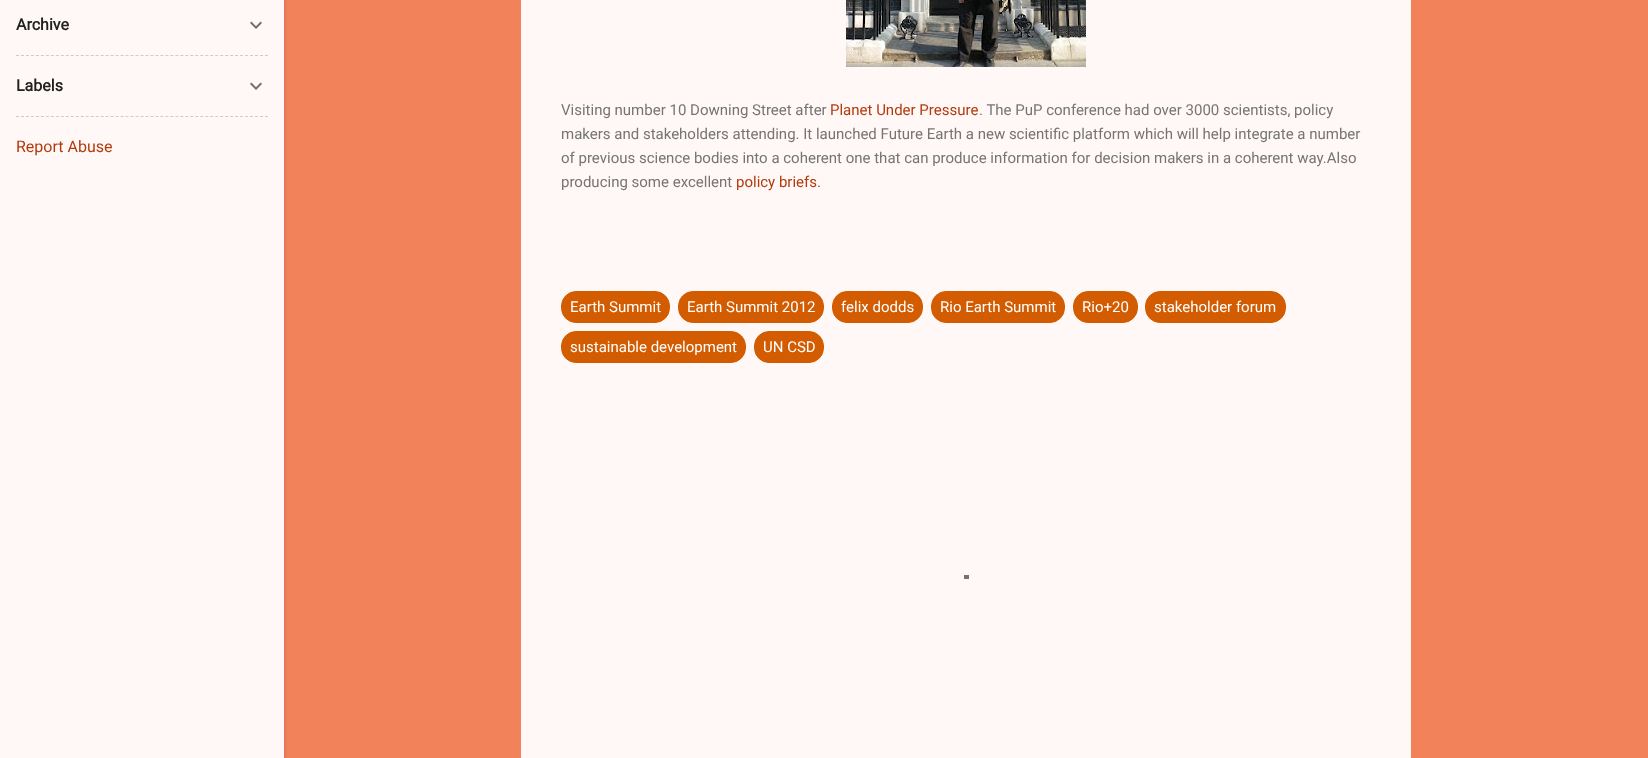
<!DOCTYPE html>
<meta charset="utf-8">
<style>body { margin: 0 } canvas { display: block }</style>
<canvas id="canvas" width="1648" height="758"></canvas>
<img id="img1" src="images/1.png" hidden>
<img id="img2" src="images/2.png" hidden>
<img id="img3" src="images/3.png" hidden>
<script>
window.onload = function () {
    const canvas = document.getElementById('canvas');
    const context = canvas.getContext('2d');
    context.miterLimit = 4;
    context.fontKerning = 'normal';

    context.fillStyle = 'rgb(242, 130, 90)';
    context.fillRect(0, 0, 1648, 758);
    context.fillStyle = 'rgba(0, 0, 0, 0.1)';
    context.filter = 'blur(1.5px)';
    context.beginPath();
    context.rect(1, -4, 284, 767);
    context.fill();
    context.filter = 'none';
    context.fillStyle = 'rgb(255, 248, 246)';
    context.fillRect(0, 0, 284, 758);
    context.drawImage(document.getElementById('img1'), 250, 21, 12, 8);
    context.beginPath();
    context.moveTo(16, 55.5);
    context.lineTo(268, 55.5);
    context.strokeStyle = 'rgb(204, 204, 204)';
    context.setLineDash([3, 1.98]);
    context.stroke();
    context.drawImage(document.getElementById('img2'), 250, 82, 12, 8);
    context.beginPath();
    context.moveTo(16, 116.5);
    context.lineTo(268, 116.5);
    context.stroke();
    context.fillRect(521, 0, 890, 758);
    context.drawImage(document.getElementById('img3'), 846, 0, 240, 67);
    context.fillStyle = 'rgb(212, 92, 0)';
    context.beginPath();
    context.roundRect(561.5, 291.5, 108, 31, 14.5);
    context.fill();
    context.strokeStyle = 'rgb(212, 92, 0)';
    context.setLineDash([]);
    context.stroke();
    context.beginPath();
    context.roundRect(678.5, 291.5, 145, 31, 14.5);
    context.fill();
    context.stroke();
    context.beginPath();
    context.roundRect(832.5, 291.5, 90, 31, 14.5);
    context.fill();
    context.stroke();
    context.beginPath();
    context.roundRect(931.5, 291.5, 133, 31, 14.5);
    context.fill();
    context.stroke();
    context.beginPath();
    context.roundRect(1073.5, 291.5, 64, 31, 14.5);
    context.fill();
    context.stroke();
    context.beginPath();
    context.roundRect(1145.5, 291.5, 140, 31, 14.5);
    context.fill();
    context.stroke();
    context.beginPath();
    context.roundRect(561.5, 331.5, 184, 31, 14.5);
    context.fill();
    context.stroke();
    context.beginPath();
    context.roundRect(754.5, 331.5, 69, 31, 14.5);
    context.fill();
    context.stroke();
    context.fillStyle = 'rgb(117, 114, 113)';
    context.fillRect(964, 575, 5, 4);
    context.font = 'bold 16px Roboto';
    context.fillStyle = 'rgb(33, 33, 33)';
    context.fillText('Archive', 16, 30);
    context.fillText('Labels', 16, 91);
    context.font = '16px Roboto';
    context.fillStyle = 'rgb(179, 58, 13)';
    context.fillText('Report Abuse', 16, 152);
    context.font = '15px Roboto';
    context.fillStyle = 'rgb(117, 117, 117)';
    context.fillText('Visiting number 10 Downing Street after', 561, 115);
    context.fillStyle = 'rgb(179, 58, 13)';
    context.fillText('Planet Under Pressure', 830, 115);
    context.fillStyle = 'rgb(117, 117, 117)';
    context.fillText('. The PuP conference had over 3000 scientists, policy', 979, 115);
    context.fillText('makers and stakeholders attending. It launched Future Earth a new scientific platform which will help integrate a number', 561, 139);
    context.fillText('of previous science bodies into a coherent one that can produce information for decision makers in a coherent way.Also', 561, 163);
    context.fillText('producing some excellent', 561, 187);
    context.fillStyle = 'rgb(179, 58, 13)';
    context.fillText('policy briefs.', 736, 187);
    context.fillStyle = 'rgb(255, 255, 255)';
    context.fillText('Earth Summit', 570, 312);
    context.fillText('Earth Summit 2012', 687, 312);
    context.fillText('felix dodds', 841, 312);
    context.fillText('Rio Earth Summit', 940, 312);
    context.fillText('Rio+20', 1082, 312);
    context.fillText('stakeholder forum', 1154, 312);
    context.fillText('sustainable development', 570, 352);
    context.fillText('UN CSD', 763, 352);
};
</script>
